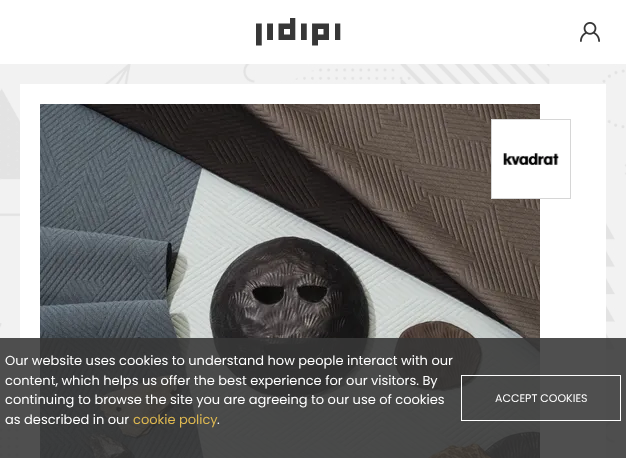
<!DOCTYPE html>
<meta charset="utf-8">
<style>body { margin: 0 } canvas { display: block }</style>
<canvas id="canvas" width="626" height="458"></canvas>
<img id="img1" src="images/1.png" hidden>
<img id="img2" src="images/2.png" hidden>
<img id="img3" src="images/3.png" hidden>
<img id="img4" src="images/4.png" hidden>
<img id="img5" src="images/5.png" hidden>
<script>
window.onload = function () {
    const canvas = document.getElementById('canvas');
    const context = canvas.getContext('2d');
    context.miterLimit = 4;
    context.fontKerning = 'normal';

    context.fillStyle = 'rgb(255, 255, 255)';
    context.fillRect(0, 0, 626, 458);
    context.drawImage(document.getElementById('img1'), 256, 18, 85, 28);
    context.drawImage(document.getElementById('img2'), 580, 22, 20, 20);
    context.drawImage(document.getElementById('img3'), 0, 64, 626, 394);
    context.fillRect(20, 84, 586, 374);
    context.drawImage(document.getElementById('img4'), 40, 104, 500, 354);
    context.fillRect(492, 120, 48, 78);
    context.strokeStyle = 'rgb(214, 214, 214)';
    context.strokeRect(491.5, 119.5, 79, 79);
    context.drawImage(document.getElementById('img5'), 503, 153, 56, 13);
    context.fillStyle = 'rgba(55, 55, 55, 0.88)';
    context.fillRect(0, 338, 626, 120);
    context.strokeStyle = 'rgb(255, 255, 255)';
    context.strokeRect(461.5, 375.5, 159, 45);
    context.font = '13px Poppins';
    context.fillStyle = 'rgb(255, 255, 255)';
    context.fillText('Our website uses cookies to understand how people interact with our', 5, 365);
    context.fillText('content, which helps us offer the best experience for our visitors. By', 5, 385);
    context.fillText('continuing to browse the site you are agreeing to our use of cookies', 5, 404);
    context.fillText('as described in our', 5, 424);
    context.fillStyle = 'rgb(222, 184, 81)';
    context.fillText('cookie policy', 133, 424);
    context.fillStyle = 'rgb(255, 255, 255)';
    context.fillText('.', 217, 424);
    context.font = '11px Poppins';
    context.fillText('ACCEPT COOKIES', 495, 402);
};
</script>
